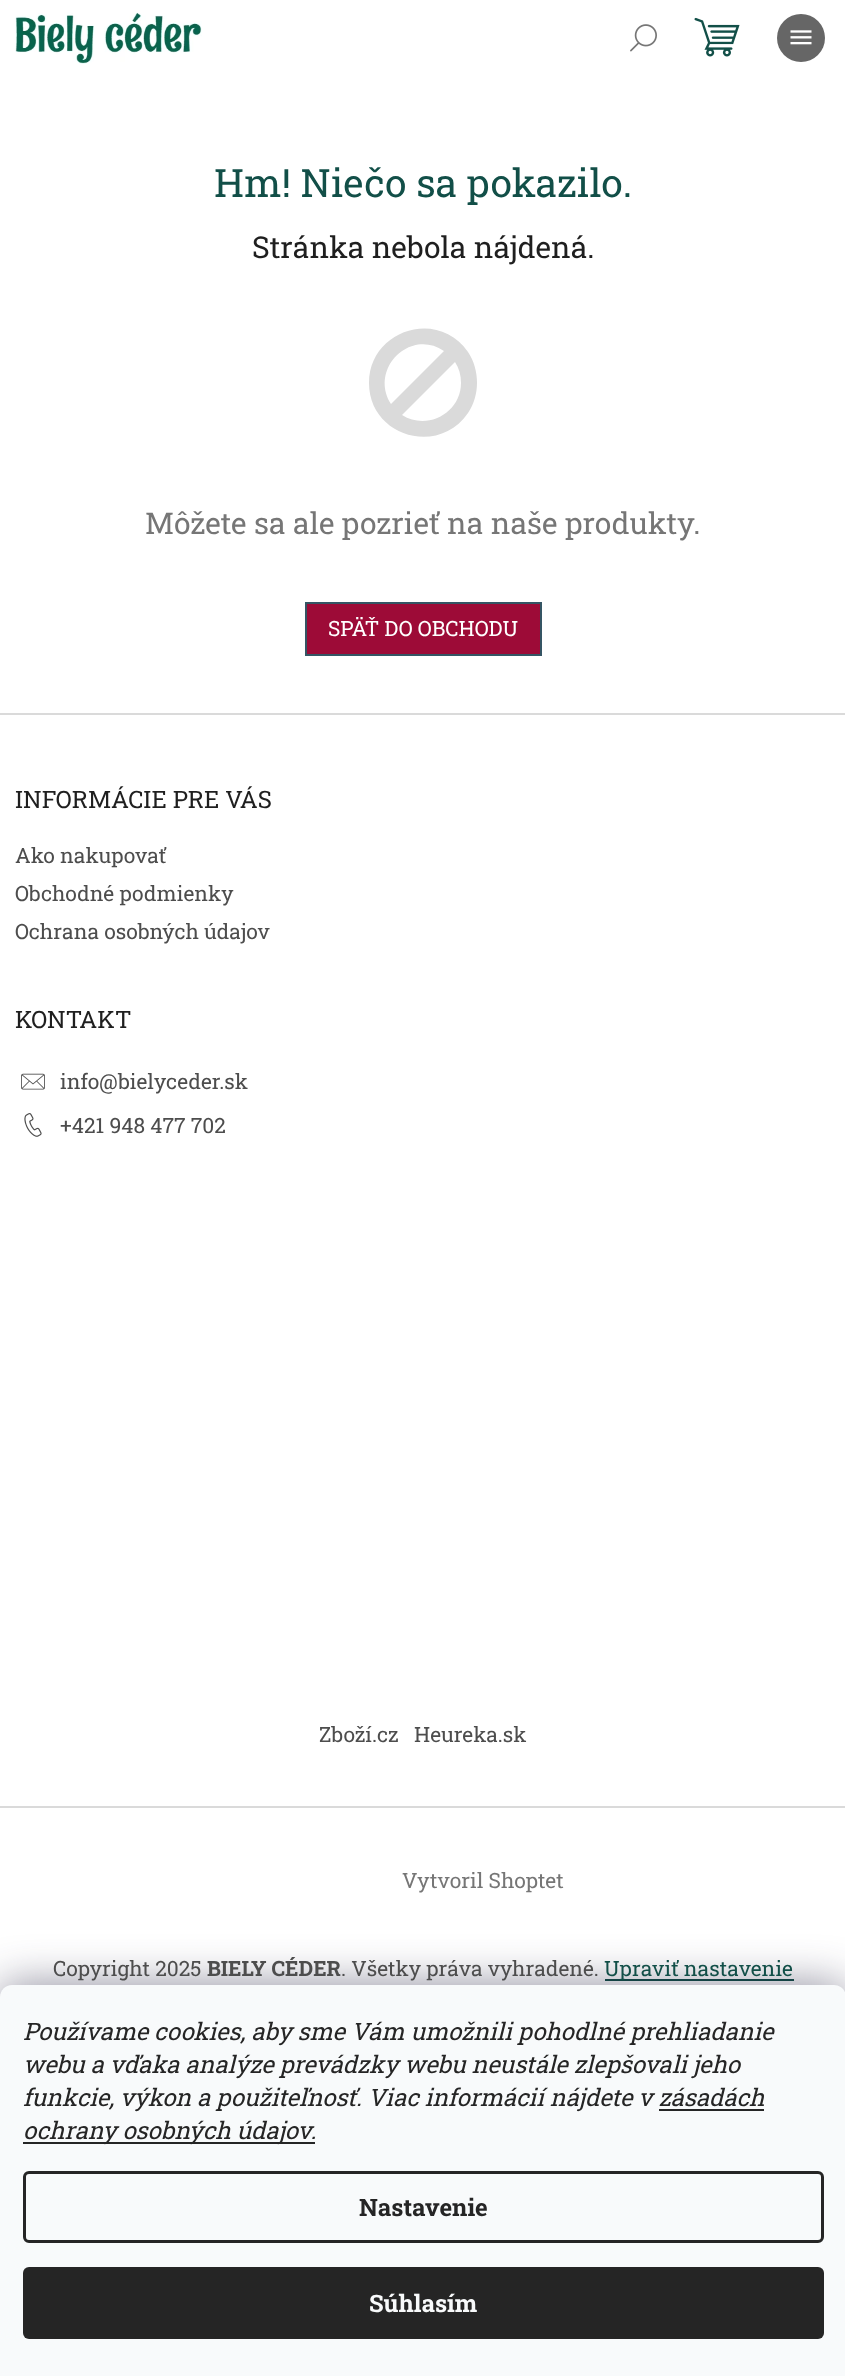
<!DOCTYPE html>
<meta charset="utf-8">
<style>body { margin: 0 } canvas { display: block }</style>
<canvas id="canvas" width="845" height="2376"></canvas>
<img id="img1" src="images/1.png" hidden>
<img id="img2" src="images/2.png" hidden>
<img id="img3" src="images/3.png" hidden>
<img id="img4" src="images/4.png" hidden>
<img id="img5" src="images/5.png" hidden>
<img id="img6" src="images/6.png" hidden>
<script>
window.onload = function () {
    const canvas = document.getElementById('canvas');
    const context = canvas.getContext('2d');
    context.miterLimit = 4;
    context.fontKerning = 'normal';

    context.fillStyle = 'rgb(255, 255, 255)';
    context.fillRect(0, 0, 845, 2376);
    context.drawImage(document.getElementById('img1'), 15, 12, 187, 52);
    context.drawImage(document.getElementById('img2'), 694, 17, 46, 40);
    context.drawImage(document.getElementById('img3'), 630, 24, 27, 28);
    context.fillStyle = 'rgb(102, 102, 102)';
    context.beginPath();
    context.arc(801, 38, 24, 0, 2 * Math.PI);
    context.fill();
    context.drawImage(document.getElementById('img4'), 790, 30, 22, 15);
    context.fillStyle = 'rgb(218, 218, 218)';
    context.beginPath();
    context.moveTo(461, 383);
    context.bezierCurveTo(461, 375, 459, 368, 455, 362);
    context.lineTo(402, 415);
    context.bezierCurveTo(427, 431, 461, 413, 461, 383);
    context.closePath();
    context.moveTo(391, 404);
    context.lineTo(444, 351);
    context.bezierCurveTo(410, 328, 369, 369, 391, 404);
    context.closePath();
    context.moveTo(477, 383);
    context.bezierCurveTo(477, 393, 474, 404, 468, 413);
    context.bezierCurveTo(438, 457, 369, 436, 369, 383);
    context.bezierCurveTo(369, 330, 438, 308, 468, 352);
    context.bezierCurveTo(474, 361, 477, 372, 477, 383);
    context.closePath();
    context.fill();
    context.fillStyle = 'rgb(157, 11, 55)';
    context.beginPath();
    context.rect(306, 603, 235, 52);
    context.fill();
    context.strokeStyle = 'rgb(53, 85, 100)';
    context.lineWidth = 2;
    context.stroke();
    context.fillStyle = 'rgb(218, 218, 218)';
    context.fillRect(0, 713, 845, 2);
    context.drawImage(document.getElementById('img5'), 21, 1073, 24, 17);
    context.drawImage(document.getElementById('img6'), 24, 1113, 18, 24);
    context.fillRect(0, 1806, 845, 2);
    context.fillStyle = 'rgb(18, 79, 72)';
    context.fillRect(605, 1979, 189, 2);
    context.fillStyle = 'rgba(27, 25, 57, 0.5)';
    context.filter = 'blur(22.5px)';
    context.beginPath();
    context.roundRect(0, 1985, 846, 391, 12);
    context.fill();
    context.filter = 'none';
    context.fillStyle = 'rgb(248, 250, 251)';
    context.beginPath();
    context.moveTo(12, 1985);
    context.lineTo(834, 1985);
    context.bezierCurveTo(840.5, 1985, 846, 1990.5, 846, 1997);
    context.lineTo(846, 2376);
    context.lineTo(0, 2376);
    context.lineTo(0, 1997);
    context.bezierCurveTo(0, 1990.5, 5.5, 1985, 12, 1985);
    context.closePath();
    context.fill();
    context.fillStyle = 'rgb(37, 37, 37)';
    context.fillRect(659, 2109, 105, 2);
    context.fillRect(23, 2142, 292, 2);
    context.beginPath();
    context.roundRect(24.5, 2172.5, 798, 69, 4.5);
    context.strokeStyle = 'rgb(37, 37, 37)';
    context.lineWidth = 3;
    context.stroke();
    context.beginPath();
    context.roundRect(23, 2267, 801, 72, 6);
    context.fill();
    context.font = '39px Roboto Slab';
    context.fillStyle = 'rgb(18, 79, 72)';
    context.fillText('Hm! Niečo sa pokazilo.', 214, 197);
    context.font = '30px Roboto Slab';
    context.fillStyle = 'rgb(31, 31, 31)';
    context.fillText('Stránka nebola nájdená.', 252, 258);
    context.fillStyle = 'rgb(118, 118, 118)';
    context.fillText('Môžete sa ale pozrieť na naše produkty.', 145, 534);
    context.font = '21px Roboto Slab';
    context.fillStyle = 'rgb(255, 255, 255)';
    context.fillText('SPÄŤ DO OBCHODU', 328, 636);
    context.font = '24px Roboto Slab';
    context.fillStyle = 'rgb(31, 31, 31)';
    context.fillText('INFORMÁCIE PRE VÁS', 15, 808);
    context.font = '21px Roboto Slab';
    context.fillStyle = 'rgb(77, 77, 77)';
    context.fillText('Ako nakupovať', 15, 863);
    context.fillText('Obchodné podmienky', 15, 901);
    context.fillText('Ochrana osobných údajov', 15, 939);
    context.font = '24px Roboto Slab';
    context.fillStyle = 'rgb(31, 31, 31)';
    context.fillText('KONTAKT', 15, 1028);
    context.font = '21px Roboto Slab';
    context.fillStyle = 'rgb(77, 77, 77)';
    context.fillText('info@bielyceder.sk', 60, 1089);
    context.fillText('+421 948 477 702', 60, 1133);
    context.fillText('Zboží.cz', 319, 1742);
    context.fillText('Heureka.sk', 414, 1742);
    context.fillStyle = 'rgb(118, 118, 118)';
    context.fillText('Vytvoril Shoptet', 402, 1888);
    context.fillStyle = 'rgb(77, 77, 77)';
    context.fillText('Copyright 2025', 53, 1976);
    context.font = 'bold 21px Roboto Slab';
    context.fillText('BIELY CÉDER', 207, 1976);
    context.font = '21px Roboto Slab';
    context.fillText('. Všetky práva vyhradené.', 341, 1976);
    context.fillStyle = 'rgb(18, 79, 72)';
    context.fillText('Upraviť nastavenie', 604, 1976);
    context.font = 'italic 24px Roboto Slab';
    context.fillStyle = 'rgb(37, 37, 37)';
    context.fillText('Používame cookies, aby sme Vám umožnili pohodlné prehliadanie', 23, 2040);
    context.fillText('webu a vďaka analýze prevádzky webu neustále zlepšovali jeho', 23, 2073);
    context.fillText('funkcie, výkon a použiteľnosť. Viac informácií nájdete v zásadách', 23, 2106);
    context.fillText('ochrany osobných údajov.', 23, 2139);
    context.font = 'bold 24px Roboto Slab';
    context.fillText('Nastavenie', 359, 2216);
    context.fillStyle = 'rgb(248, 250, 251)';
    context.fillText('Súhlasím', 369, 2312);
};
</script>
